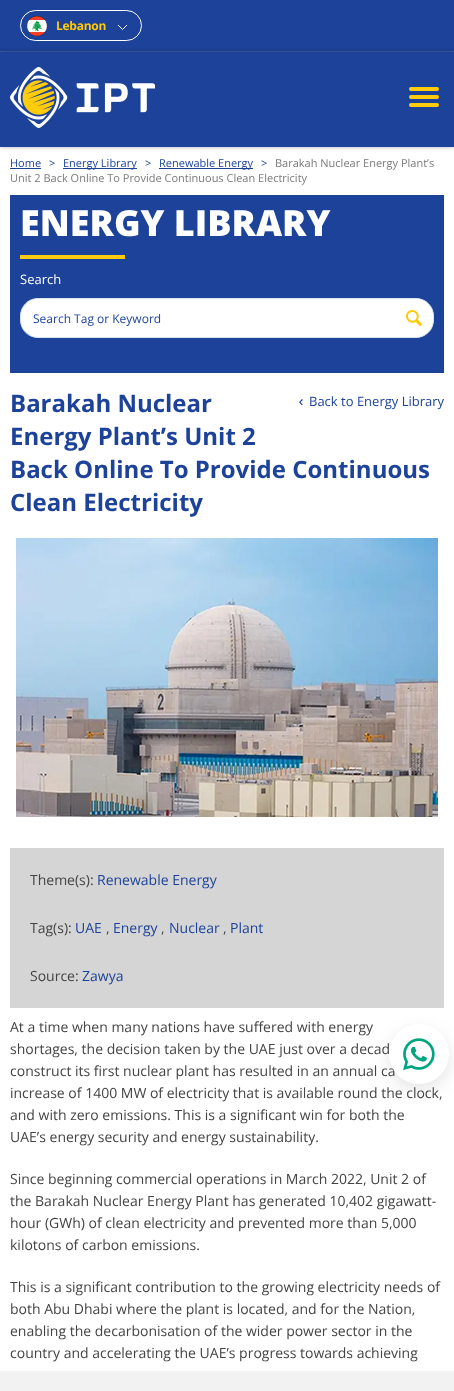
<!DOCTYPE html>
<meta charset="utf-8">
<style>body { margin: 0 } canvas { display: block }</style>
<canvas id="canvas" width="454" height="1391"></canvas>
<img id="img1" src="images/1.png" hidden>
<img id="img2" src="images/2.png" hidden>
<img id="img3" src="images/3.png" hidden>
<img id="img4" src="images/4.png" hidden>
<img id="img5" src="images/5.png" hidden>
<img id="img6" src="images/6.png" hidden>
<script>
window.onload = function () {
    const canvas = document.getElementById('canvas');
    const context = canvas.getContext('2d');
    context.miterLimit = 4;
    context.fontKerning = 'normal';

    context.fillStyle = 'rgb(255, 255, 255)';
    context.fillRect(0, 0, 454, 1391);
    context.fillStyle = 'rgb(28, 66, 153)';
    context.fillRect(0, 0, 454, 147);
    context.fillStyle = 'rgb(62, 94, 168)';
    context.fillRect(0, 51, 454, 1);
    context.beginPath();
    context.roundRect(20.5, 10.5, 121, 30, 15);
    context.strokeStyle = 'rgb(255, 255, 255)';
    context.stroke();
    context.drawImage(document.getElementById('img1'), 27, 16, 20, 20);
    context.save();
    context.beginPath();
    context.rect(117, 25, 10, 5);
    context.clip();
    context.beginPath();
    context.moveTo(127, 25);
    context.lineTo(122.5, 29.5);
    context.lineTo(118, 25);
    context.strokeStyle = 'rgb(255, 255, 254)';
    context.stroke();
    context.restore();
    context.save();
    context.beginPath();
    context.moveTo(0, 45);
    context.lineTo(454, 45);
    context.lineTo(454, 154);
    context.lineTo(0, 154);
    context.closePath();
    context.moveTo(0, 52);
    context.lineTo(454, 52);
    context.lineTo(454, 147);
    context.lineTo(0, 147);
    context.closePath();
    context.clip('evenodd');
    context.fillStyle = 'rgba(0, 0, 0, 0.3)';
    context.filter = 'blur(2px)';
    context.beginPath();
    context.rect(0, 52, 454, 95);
    context.fill();
    context.filter = 'none';
    context.restore();
    context.drawImage(document.getElementById('img2'), 10, 67, 145, 61);
    context.fillStyle = 'rgb(254, 204, 12)';
    context.beginPath();
    context.roundRect(409, 95, 30, 4, 2);
    context.fill();
    context.beginPath();
    context.roundRect(409, 87, 30, 4, 2);
    context.fill();
    context.beginPath();
    context.roundRect(409, 103, 30, 4, 2);
    context.fill();
    context.fillStyle = 'rgb(28, 66, 153)';
    context.fillRect(10, 168, 31, 1);
    context.fillRect(63, 168, 74, 1);
    context.fillRect(159, 168, 94, 1);
    context.fillRect(10, 195, 434, 178);
    context.fillStyle = 'rgb(254, 204, 12)';
    context.fillRect(20, 255, 105, 4);
    context.fillStyle = 'rgb(255, 255, 255)';
    context.beginPath();
    context.roundRect(20.5, 298.5, 413, 39, 17.5);
    context.fill();
    context.strokeStyle = 'rgb(216, 229, 239)';
    context.stroke();
    context.drawImage(document.getElementById('img3'), 406, 310, 16, 16);
    context.drawImage(document.getElementById('img4'), 299, 399, 4, 6);
    context.fillStyle = 'rgb(242, 242, 242)';
    context.fillRect(0, 1371, 454, 20);
    context.drawImage(document.getElementById('img5'), 16, 538, 422, 279);
    context.fillStyle = 'rgb(213, 213, 213)';
    context.fillRect(10, 848, 434, 160);
    context.fillStyle = 'rgba(0, 0, 0, 0.1)';
    context.filter = 'blur(8.5px)';
    context.beginPath();
    context.roundRect(389, 1030, 60, 60, 30);
    context.fill();
    context.filter = 'none';
    context.letterSpacing = '-0.25px';
    context.font = 'bold 12px Open Sans';
    context.fillStyle = 'rgb(255, 202, 6)';
    context.fillText('Lebanon', 56, 30);
    context.letterSpacing = '0px';
    context.font = '11px Open Sans';
    context.fillStyle = 'rgb(28, 66, 153)';
    context.fillText('Home', 10, 167);
    context.fillText('>', 49, 167);
    context.fillText('Energy Library', 63, 167);
    context.fillText('>', 145, 167);
    context.fillText('Renewable Energy', 159, 167);
    context.fillText('>', 261, 167);
    context.fillStyle = 'rgb(122, 122, 122)';
    context.fillText('Barakah Nuclear Energy Plant’s', 275, 167);
    context.fillText('Unit 2 Back Online To Provide Continuous Clean Electricity', 10, 182);
    context.font = '800 36px Open Sans';
    context.fillStyle = 'rgb(255, 255, 255)';
    context.fillText('ENERGY LIBRARY', 20, 236);
    context.font = '13px Open Sans';
    context.fillText('Search', 20, 284);
    context.font = '12px Open Sans';
    context.fillStyle = 'rgb(28, 66, 153)';
    context.fillText('Search Tag or Keyword', 33, 323);
    context.font = 'bold 24px Open Sans';
    context.fillText('Barakah Nuclear', 10, 412);
    context.fillText('Energy Plant’s Unit 2', 10, 445);
    context.fillText('Back Online To Provide Continuous', 10, 478);
    context.fillText('Clean Electricity', 10, 511);
    context.font = '13px Open Sans';
    context.fillText('Back to Energy Library', 309, 406);
    context.font = '14px Open Sans';
    context.fillStyle = 'rgb(68, 68, 68)';
    context.fillText('Theme(s):', 30, 885);
    context.fillStyle = 'rgb(28, 66, 153)';
    context.fillText('Renewable Energy', 97, 885);
    context.fillStyle = 'rgb(68, 68, 68)';
    context.fillText('Tag(s):', 30, 933);
    context.fillStyle = 'rgb(28, 66, 153)';
    context.fillText('UAE', 75, 933);
    context.fillStyle = 'rgb(68, 68, 68)';
    context.fillText(',', 106, 933);
    context.fillStyle = 'rgb(28, 66, 153)';
    context.fillText('Energy', 113, 933);
    context.fillStyle = 'rgb(68, 68, 68)';
    context.fillText(',', 161, 933);
    context.fillStyle = 'rgb(28, 66, 153)';
    context.fillText('Nuclear', 169, 933);
    context.fillStyle = 'rgb(68, 68, 68)';
    context.fillText(',', 223, 933);
    context.fillStyle = 'rgb(28, 66, 153)';
    context.fillText('Plant', 230, 933);
    context.fillStyle = 'rgb(68, 68, 68)';
    context.fillText('Source:', 30, 981);
    context.fillStyle = 'rgb(28, 66, 153)';
    context.fillText('Zawya', 82, 981);
    context.fillStyle = 'rgb(68, 68, 68)';
    context.fillText('At a time when many nations have suffered with energy', 10, 1032);
    context.fillText('shortages, the decision taken by the UAE just over a decad', 10, 1054);
    context.fillText('construct its first nuclear plant has resulted in an annual ca', 10, 1076);
    context.fillText('increase of 1400 MW of electricity that is available round the clock,', 10, 1098);
    context.fillText('and with zero emissions. This is a significant win for both the', 10, 1120);
    context.fillText('UAE’s energy security and energy sustainability.', 10, 1142);
    context.fillText('Since beginning commercial operations in March 2022, Unit 2 of', 10, 1184);
    context.fillText('the Barakah Nuclear Energy Plant has generated 10,402 gigawatt-', 10, 1206);
    context.fillText('hour (GWh) of clean electricity and prevented more than 5,000', 10, 1228);
    context.fillText('kilotons of carbon emissions.', 10, 1250);
    context.fillText('This is a significant contribution to the growing electricity needs of', 10, 1292);
    context.fillText('both Abu Dhabi where the plant is located, and for the Nation,', 10, 1314);
    context.fillText('enabling the decarbonisation of the wider power sector in the', 10, 1336);
    context.fillText('country and accelerating the UAE’s progress towards achieving', 10, 1358);
    context.fillStyle = 'rgb(255, 255, 255)';
    context.beginPath();
    context.arc(419, 1054, 30, 0, 2 * Math.PI);
    context.fill();
    context.drawImage(document.getElementById('img6'), 403, 1038, 32, 32);
};
</script>
